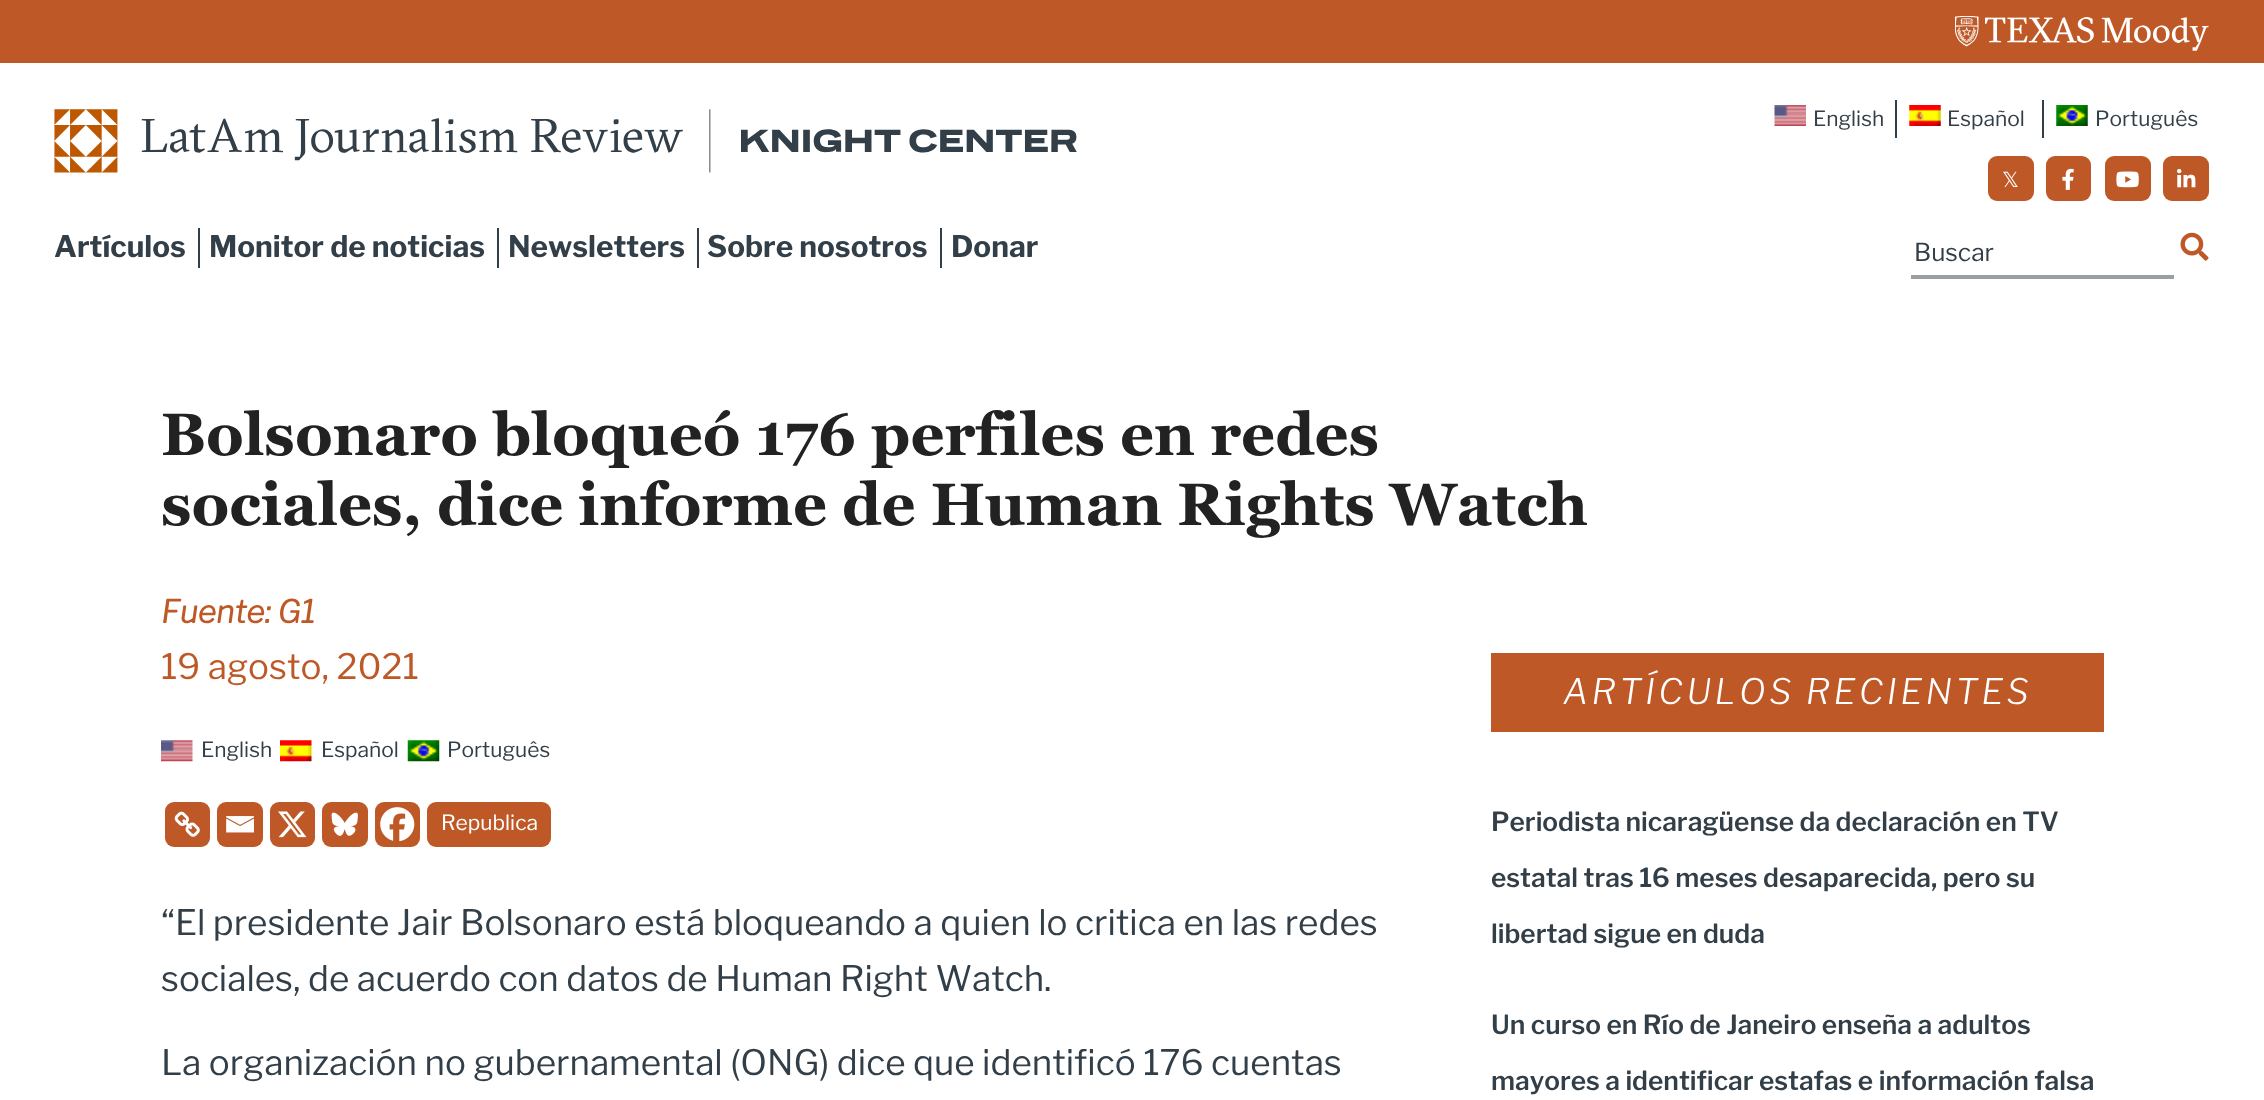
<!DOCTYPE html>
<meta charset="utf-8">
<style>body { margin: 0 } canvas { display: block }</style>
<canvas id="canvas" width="2264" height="1100"></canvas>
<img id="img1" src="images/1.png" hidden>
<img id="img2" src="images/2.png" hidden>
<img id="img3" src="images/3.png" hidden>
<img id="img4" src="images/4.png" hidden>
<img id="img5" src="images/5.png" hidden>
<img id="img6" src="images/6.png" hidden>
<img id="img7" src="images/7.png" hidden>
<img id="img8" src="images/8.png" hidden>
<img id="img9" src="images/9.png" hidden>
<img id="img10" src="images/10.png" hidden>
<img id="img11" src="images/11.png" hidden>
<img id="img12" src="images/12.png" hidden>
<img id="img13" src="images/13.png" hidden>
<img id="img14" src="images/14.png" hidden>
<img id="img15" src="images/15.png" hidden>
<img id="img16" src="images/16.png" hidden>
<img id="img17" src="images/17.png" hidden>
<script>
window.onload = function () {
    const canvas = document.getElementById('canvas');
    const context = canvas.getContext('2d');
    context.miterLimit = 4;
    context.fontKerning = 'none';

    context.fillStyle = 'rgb(255, 255, 255)';
    context.fillRect(0, 0, 2264, 1100);
    context.fillStyle = 'rgb(190, 89, 39)';
    context.fillRect(0, 0, 2264, 63);
    context.drawImage(document.getElementById('img1'), 1955, 16, 254, 35);
    context.drawImage(document.getElementById('img2'), 54, 109, 1023, 64);
    context.drawImage(document.getElementById('img3'), 1774, 105, 32, 21);
    context.fillStyle = 'rgb(51, 63, 72)';
    context.fillRect(1895, 100, 2, 38);
    context.drawImage(document.getElementById('img4'), 1909, 105, 32, 21);
    context.fillRect(2042, 100, 2, 38);
    context.drawImage(document.getElementById('img5'), 2056, 105, 32, 21);
    context.fillStyle = 'rgb(190, 89, 39)';
    context.beginPath();
    context.roundRect(1988, 156, 46, 45, 9);
    context.fill();
    context.beginPath();
    context.roundRect(2046, 156, 45, 45, 9);
    context.fill();
    context.drawImage(document.getElementById('img6'), 2062, 168, 12, 22);
    context.beginPath();
    context.roundRect(2105, 156, 46, 45, 9);
    context.fill();
    context.drawImage(document.getElementById('img7'), 2116, 171, 23, 17);
    context.beginPath();
    context.roundRect(2163, 156, 46, 45, 9);
    context.fill();
    context.drawImage(document.getElementById('img8'), 2177, 168, 19, 20);
    context.fillStyle = 'rgb(51, 63, 72)';
    context.fillRect(198, 228, 2, 40);
    context.fillRect(497, 228, 2, 40);
    context.fillRect(697, 228, 2, 40);
    context.fillRect(940, 228, 2, 40);
    context.fillStyle = 'rgb(153, 159, 163)';
    context.fillRect(1911, 275, 263, 4);
    context.drawImage(document.getElementById('img9'), 2180, 232, 29, 29);
    context.drawImage(document.getElementById('img10'), 161, 740, 32, 22);
    context.drawImage(document.getElementById('img11'), 280, 740, 32, 22);
    context.drawImage(document.getElementById('img12'), 407, 740, 33, 22);
    context.fillStyle = 'rgb(190, 89, 39)';
    context.beginPath();
    context.roundRect(165, 802, 45, 45, 9);
    context.fill();
    context.drawImage(document.getElementById('img13'), 174, 811, 26, 26);
    context.beginPath();
    context.roundRect(217, 802, 46, 45, 9);
    context.fill();
    context.drawImage(document.getElementById('img14'), 226, 816, 28, 17);
    context.beginPath();
    context.roundRect(270, 802, 45, 45, 9);
    context.fill();
    context.drawImage(document.getElementById('img15'), 278, 811, 29, 27);
    context.beginPath();
    context.roundRect(322, 802, 46, 45, 9);
    context.fill();
    context.drawImage(document.getElementById('img16'), 331, 812, 27, 24);
    context.beginPath();
    context.roundRect(375, 802, 45, 45, 9);
    context.fill();
    context.drawImage(document.getElementById('img17'), 380, 807, 35, 35);
    context.beginPath();
    context.roundRect(427, 802, 124, 45, 9);
    context.fill();
    context.fillRect(1491, 653, 613, 79);
    context.font = '21px Libre Franklin';
    context.fillStyle = 'rgb(51, 63, 72)';
    context.fillText('English', 1813, 126);
    context.fillText('Español', 1947, 126);
    context.fillText('Português', 2095, 126);
    context.font = '21px DejaVu Sans';
    context.fillStyle = 'rgb(255, 255, 255)';
    context.fillText('𝕏', 2002, 187);
    context.font = 'bold 29.75px Libre Franklin';
    context.fillStyle = 'rgb(51, 63, 72)';
    context.fillText('Artículos', 54, 257);
    context.fillText('Monitor de noticias', 209, 257);
    context.fillText('Newsletters', 508, 257);
    context.fillText('Sobre nosotros', 707, 257);
    context.fillText('Donar', 951, 257);
    context.font = '24.5px Libre Franklin';
    context.fillText('Buscar', 1914, 261);
    context.font = 'bold 59.5px Georgia';
    context.fillStyle = 'rgb(34, 34, 34)';
    context.fillText('Bolsonaro bloqueó 176 perfiles en redes', 161, 455);
    context.fillText('sociales, dice informe de Human Rights Watch', 161, 525);
    context.font = 'italic bold 31.5px Libre Franklin';
    context.fillStyle = 'rgb(190, 89, 39)';
    context.fillText('Fuente: G1', 161, 623);
    context.font = '35px Libre Franklin';
    context.fillText('19 agosto, 2021', 161, 679);
    context.font = '21px Libre Franklin';
    context.fillStyle = 'rgb(51, 63, 72)';
    context.fillText('English', 201, 757);
    context.fillText('Español', 321, 757);
    context.fillText('Português', 447, 757);
    context.fillStyle = 'rgb(255, 255, 255)';
    context.fillText('Republica', 441, 830);
    context.font = '35px Libre Franklin';
    context.fillStyle = 'rgb(51, 63, 72)';
    context.fillText('“El presidente Jair Bolsonaro está bloqueando a quien lo critica en las redes', 161, 935);
    context.fillText('sociales, de acuerdo con datos de Human Right Watch.', 161, 991);
    context.fillText('La organización no gubernamental (ONG) dice que identificó 176 cuentas', 161, 1075);
    context.letterSpacing = '3.5px';
    context.font = 'italic 300 35px Libre Franklin';
    context.fillStyle = 'rgb(255, 255, 255)';
    context.fillText('ARTÍCULOS RECIENTES', 1563, 704);
    context.letterSpacing = '0px';
    context.font = '600 26.25px Libre Franklin';
    context.fillStyle = 'rgb(51, 63, 72)';
    context.fillText('Periodista nicaragüense da declaración en TV', 1491, 831);
    context.fillText('estatal tras 16 meses desaparecida, pero su', 1491, 887);
    context.fillText('libertad sigue en duda', 1491, 943);
    context.fillText('Un curso en Río de Janeiro enseña a adultos', 1491, 1034);
    context.fillText('mayores a identificar estafas e información falsa', 1491, 1090);
};
</script>
